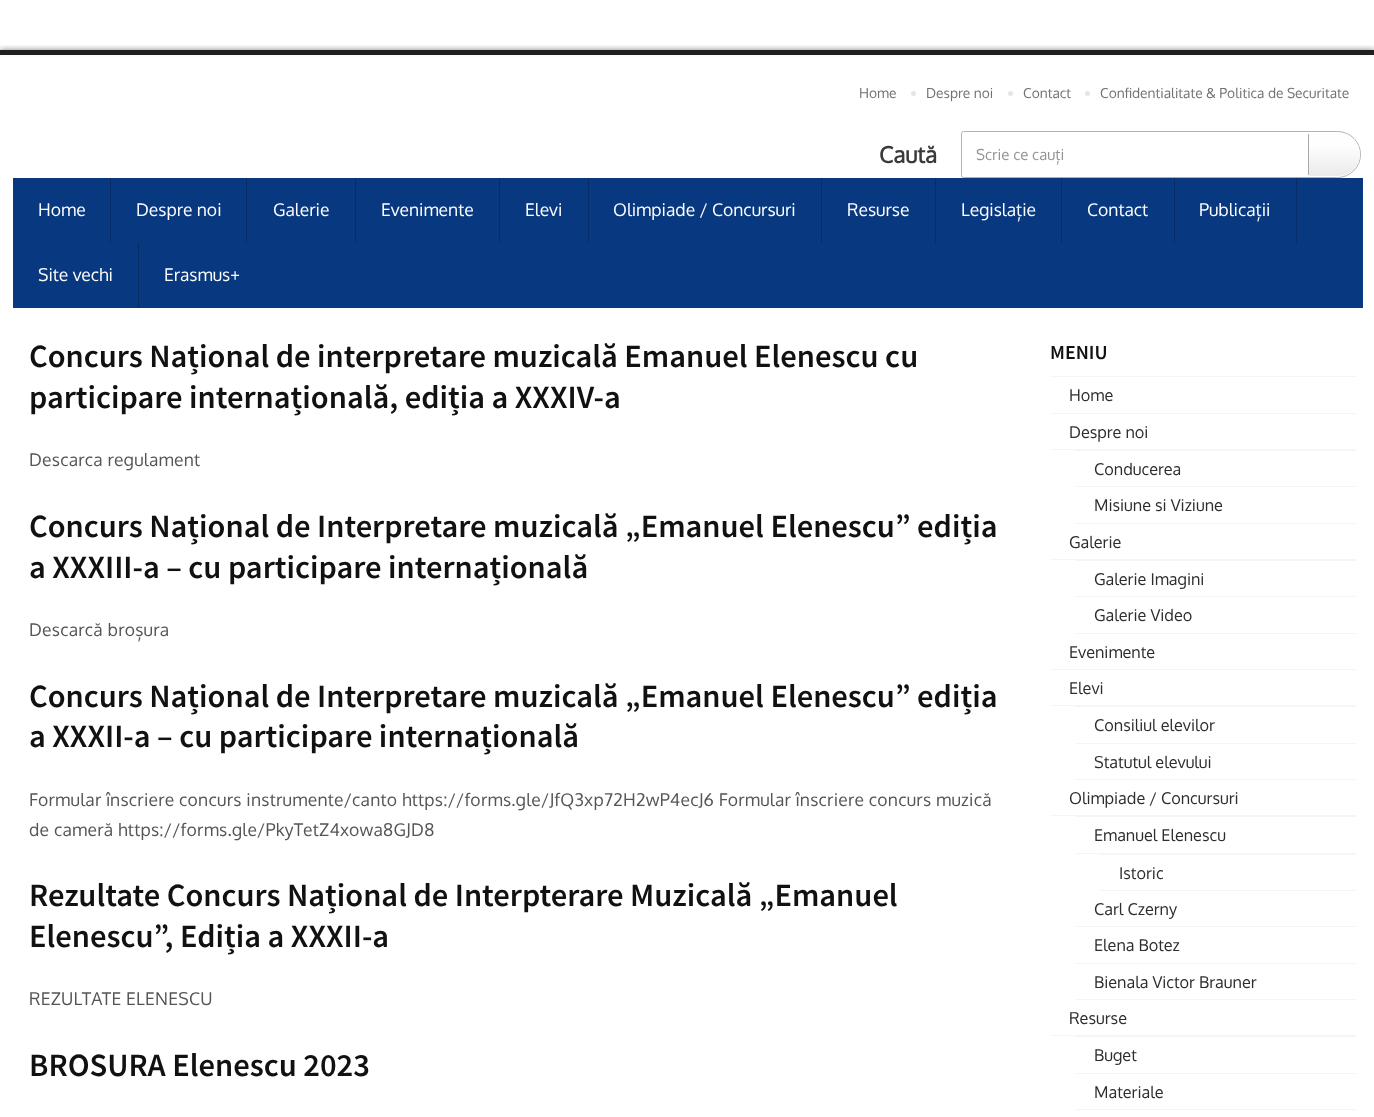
<!DOCTYPE html>
<meta charset="utf-8">
<style>body { margin: 0 } canvas { display: block }</style>
<canvas id="canvas" width="1374" height="1117"></canvas>
<script>
window.onload = function () {
    const canvas = document.getElementById('canvas');
    const context = canvas.getContext('2d');
    context.miterLimit = 4;
    context.fontKerning = 'normal';
    let gradient;

    context.fillStyle = 'rgb(255, 255, 255)';
    context.fillRect(0, 0, 1374, 1117);
    context.save();
    context.beginPath();
    context.rect(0, 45, 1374, 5);
    context.clip();
    context.fillStyle = 'rgba(0, 0, 0, 0.5)';
    context.filter = 'blur(3px)';
    context.beginPath();
    context.rect(0, 50, 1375, 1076);
    context.fill();
    context.filter = 'none';
    context.restore();
    context.fillStyle = 'rgb(31, 31, 31)';
    context.fillRect(0, 50, 1374, 5);
    context.fillStyle = 'rgb(252, 252, 252)';
    context.fillRect(0, 55, 1374, 2);
    context.fillStyle = 'rgb(229, 229, 229)';
    context.beginPath();
    context.arc(913.5, 93.5, 2.5, 0, 2 * Math.PI);
    context.fill();
    context.beginPath();
    context.arc(1010.5, 93.5, 2.5, 0, 2 * Math.PI);
    context.fill();
    context.beginPath();
    context.arc(1087.5, 93.5, 2.5, 0, 2 * Math.PI);
    context.fill();
    context.beginPath();
    context.roundRect(961.5, 131.5, 399, 46, [2, 23, 23, 2]);
    context.strokeStyle = 'rgb(178, 178, 178)';
    context.stroke();
    gradient = context.createLinearGradient(1334, 133, 1334, 176);
    gradient.addColorStop(0.29, 'rgb(254, 254, 254)');
    gradient.addColorStop(1, 'rgb(234, 234, 234)');
    context.fillStyle = gradient;
    context.beginPath();
    context.roundRect(1308, 133, 52, 43, [2.5, 21.5, 21.5, 2.5]);
    context.fill();
    context.fillStyle = 'rgb(169, 169, 169)';
    context.fillRect(1308, 134, 1, 41);
    context.fillStyle = 'rgb(8, 56, 127)';
    context.fillRect(13, 178, 1350, 130);
    context.fillStyle = 'rgb(6, 45, 102)';
    context.fillRect(110, 178, 1, 65);
    context.fillRect(246, 178, 1, 65);
    context.fillRect(355, 178, 1, 65);
    context.fillRect(499, 178, 1, 65);
    context.fillRect(588, 178, 1, 65);
    context.fillRect(821, 178, 1, 65);
    context.fillRect(935, 178, 1, 65);
    context.fillRect(1061, 178, 1, 65);
    context.fillRect(1174, 178, 1, 65);
    context.fillRect(1296, 178, 1, 65);
    context.fillRect(138, 243, 1, 65);
    context.fillStyle = 'rgb(245, 245, 245)';
    context.fillRect(1050, 376, 306, 1);
    context.fillRect(1050, 413, 306, 1);
    context.fillRect(1050, 449, 306, 1);
    context.fillRect(1075, 450, 281, 1);
    context.fillRect(1075, 486, 281, 1);
    context.fillRect(1075, 523, 281, 1);
    context.fillRect(1050, 559, 306, 1);
    context.fillRect(1075, 560, 281, 1);
    context.fillRect(1075, 596, 281, 1);
    context.fillRect(1075, 633, 281, 1);
    context.fillRect(1050, 669, 306, 1);
    context.fillRect(1050, 705, 306, 1);
    context.fillRect(1075, 706, 281, 1);
    context.fillRect(1075, 743, 281, 1);
    context.fillRect(1075, 779, 281, 1);
    context.fillRect(1050, 815, 306, 1);
    context.fillRect(1075, 816, 281, 1);
    context.fillRect(1075, 853, 281, 1);
    context.fillRect(1100, 854, 256, 1);
    context.fillRect(1100, 890, 256, 1);
    context.fillRect(1075, 926, 281, 1);
    context.fillRect(1075, 963, 281, 1);
    context.fillRect(1075, 999, 281, 1);
    context.fillRect(1050, 1035, 306, 1);
    context.fillRect(1075, 1036, 281, 1);
    context.fillRect(1075, 1073, 281, 1);
    context.fillRect(1075, 1109, 281, 1);
    context.font = '13.75px Oxygen';
    context.fillStyle = 'rgb(113, 113, 113)';
    context.fillText('Home', 859, 98);
    context.fillText('Despre noi', 926, 98);
    context.fillText('Contact', 1023, 98);
    context.fillText('Confidentialitate & Politica de Securitate', 1100, 98);
    context.font = 'bold 22.5px Oxygen';
    context.fillStyle = 'rgb(58, 58, 58)';
    context.fillText('Caută', 879, 163);
    context.font = '15px Oxygen';
    context.fillStyle = 'rgb(148, 148, 148)';
    context.fillText('Scrie ce cauți', 976, 160);
    context.font = '17.5px Oxygen';
    context.fillStyle = 'rgb(255, 255, 255)';
    context.fillText('Home', 38, 216);
    context.fillText('Despre noi', 136, 216);
    context.fillText('Galerie', 273, 216);
    context.fillText('Evenimente', 381, 216);
    context.fillText('Elevi', 525, 216);
    context.fillText('Olimpiade / Concursuri', 613, 216);
    context.fillText('Resurse', 847, 216);
    context.fillText('Legislație', 961, 216);
    context.fillText('Contact', 1087, 216);
    context.fillText('Publicații', 1199, 216);
    context.fillText('Site vechi', 38, 281);
    context.fillText('Erasmus+', 164, 281);
    context.font = '600 32.5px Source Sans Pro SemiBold';
    context.fillStyle = 'rgb(17, 17, 17)';
    context.fillText('Concurs Național de interpretare muzicală Emanuel Elenescu cu', 29, 367);
    context.fillText('participare internațională, ediția a XXXIV-a', 29, 408);
    context.letterSpacing = '0.25px';
    context.font = '17.5px Oxygen';
    context.fillStyle = 'rgb(85, 85, 85)';
    context.fillText('Descarca regulament', 29, 466);
    context.letterSpacing = '0px';
    context.font = '600 32.5px Source Sans Pro SemiBold';
    context.fillStyle = 'rgb(17, 17, 17)';
    context.fillText('Concurs Național de Interpretare muzicală „Emanuel Elenescu” ediția', 29, 537);
    context.fillText('a XXXIII-a – cu participare internațională', 29, 578);
    context.letterSpacing = '0.25px';
    context.font = '17.5px Oxygen';
    context.fillStyle = 'rgb(85, 85, 85)';
    context.fillText('Descarcă broșura', 29, 636);
    context.letterSpacing = '0px';
    context.font = '600 32.5px Source Sans Pro SemiBold';
    context.fillStyle = 'rgb(17, 17, 17)';
    context.fillText('Concurs Național de Interpretare muzicală „Emanuel Elenescu” ediția', 29, 707);
    context.fillText('a XXXII-a – cu participare internațională', 29, 747);
    context.letterSpacing = '0.25px';
    context.font = '17.5px Oxygen';
    context.fillStyle = 'rgb(85, 85, 85)';
    context.fillText('Formular înscriere concurs instrumente/canto https://forms.gle/JfQ3xp72H2wP4ecJ6 Formular înscriere concurs muzică', 29, 806);
    context.fillText('de cameră https://forms.gle/PkyTetZ4xowa8GJD8', 29, 836);
    context.letterSpacing = '0px';
    context.font = '600 32.5px Source Sans Pro SemiBold';
    context.fillStyle = 'rgb(17, 17, 17)';
    context.fillText('Rezultate Concurs Național de Interpterare Muzicală „Emanuel', 29, 906);
    context.fillText('Elenescu”, Ediția a XXXII-a', 29, 947);
    context.letterSpacing = '0.25px';
    context.font = '17.5px Oxygen';
    context.fillStyle = 'rgb(85, 85, 85)';
    context.fillText('REZULTATE ELENESCU', 29, 1005);
    context.letterSpacing = '0px';
    context.font = '600 32.5px Source Sans Pro SemiBold';
    context.fillStyle = 'rgb(17, 17, 17)';
    context.fillText('BROSURA Elenescu 2023', 29, 1076);
    context.font = '600 20px Source Sans Pro SemiBold';
    context.fillText('MENIU', 1050, 359);
    context.font = '16.25px Oxygen';
    context.fillStyle = 'rgb(45, 45, 45)';
    context.fillText('Home', 1069, 401);
    context.fillText('Despre noi', 1069, 438);
    context.fillText('Conducerea', 1094, 475);
    context.fillText('Misiune si Viziune', 1094, 511);
    context.fillText('Galerie', 1069, 548);
    context.fillText('Galerie Imagini', 1094, 585);
    context.fillText('Galerie Video', 1094, 621);
    context.fillText('Evenimente', 1069, 658);
    context.fillText('Elevi', 1069, 694);
    context.fillText('Consiliul elevilor', 1094, 731);
    context.fillText('Statutul elevului', 1094, 768);
    context.fillText('Olimpiade / Concursuri', 1069, 804);
    context.fillText('Emanuel Elenescu', 1094, 841);
    context.fillText('Istoric', 1119, 879);
    context.fillText('Carl Czerny', 1094, 915);
    context.fillText('Elena Botez', 1094, 951);
    context.fillText('Bienala Victor Brauner', 1094, 988);
    context.fillText('Resurse', 1069, 1024);
    context.fillText('Buget', 1094, 1061);
    context.fillText('Materiale', 1094, 1098);
};
</script>
